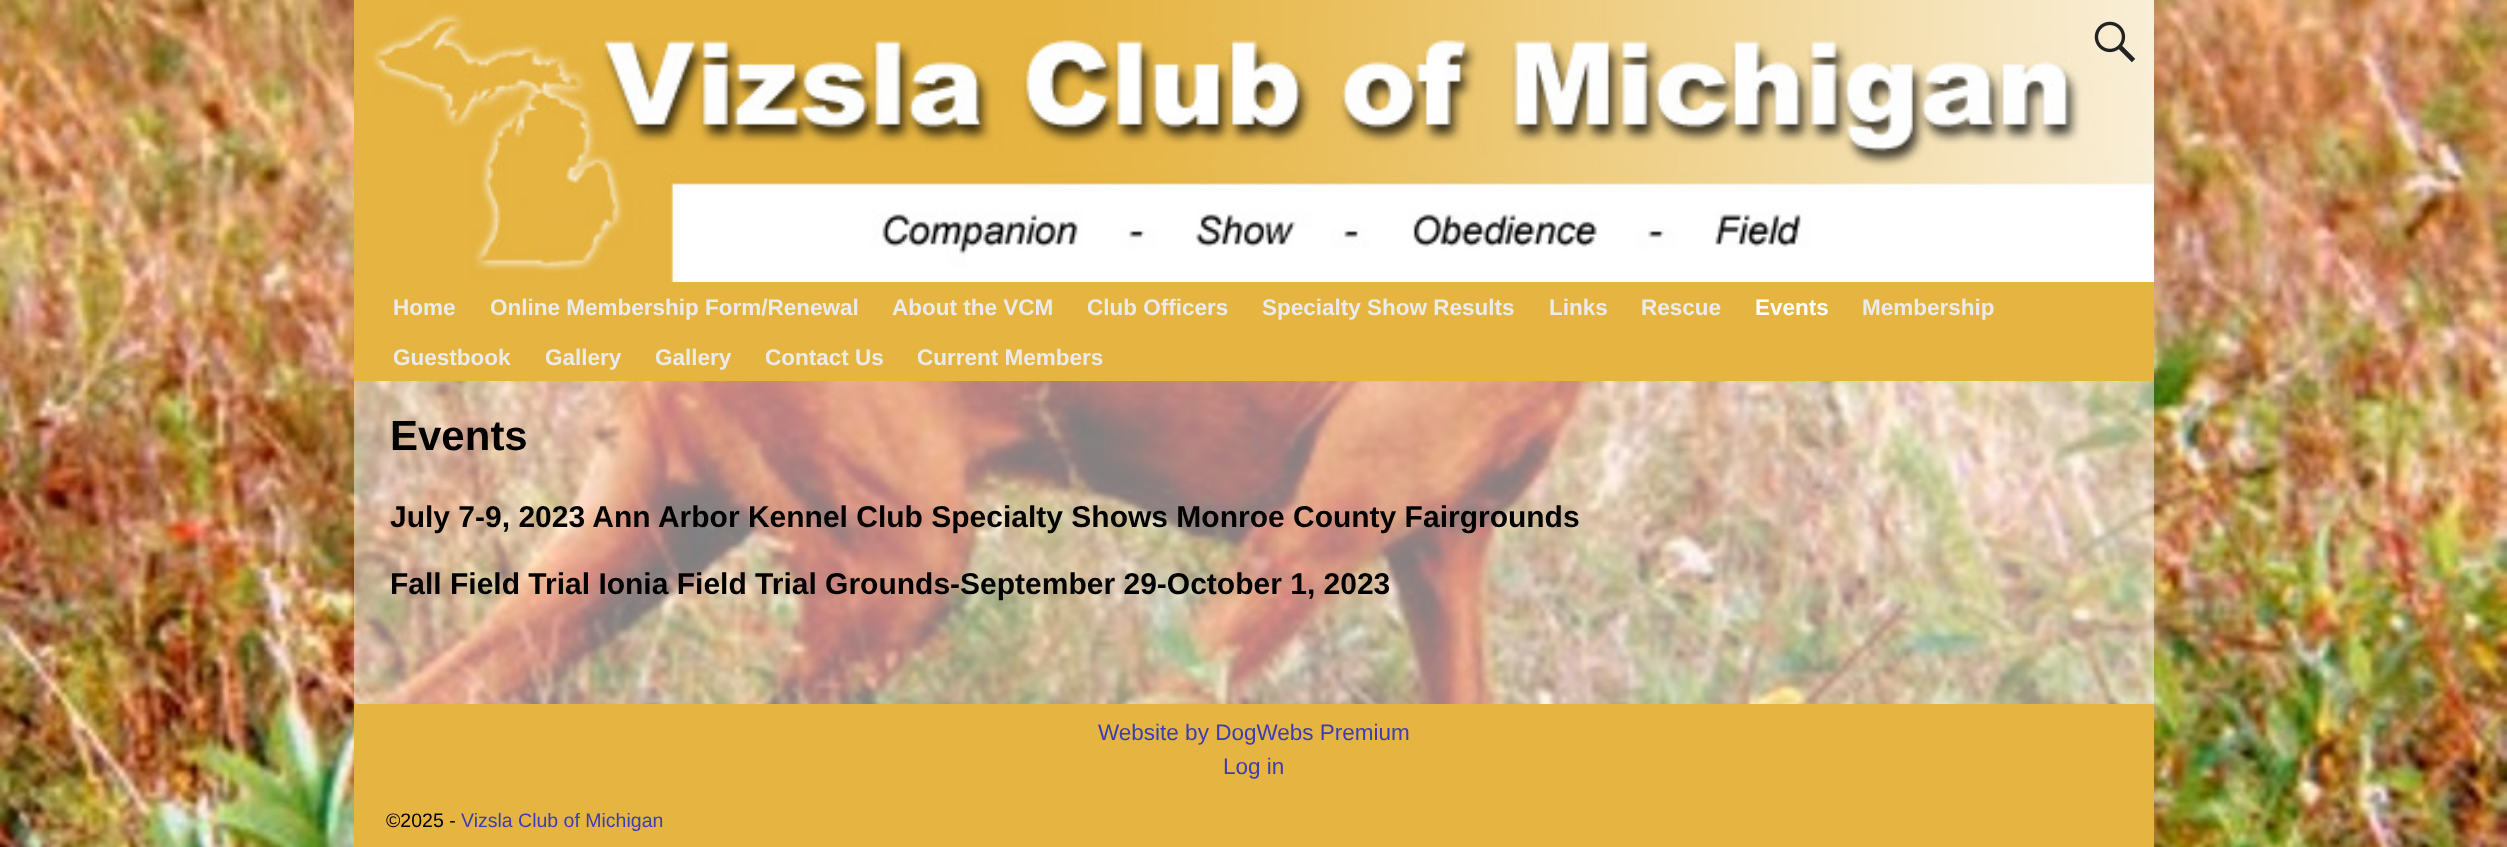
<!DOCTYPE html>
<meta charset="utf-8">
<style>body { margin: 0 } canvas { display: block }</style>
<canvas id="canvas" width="2507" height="847"></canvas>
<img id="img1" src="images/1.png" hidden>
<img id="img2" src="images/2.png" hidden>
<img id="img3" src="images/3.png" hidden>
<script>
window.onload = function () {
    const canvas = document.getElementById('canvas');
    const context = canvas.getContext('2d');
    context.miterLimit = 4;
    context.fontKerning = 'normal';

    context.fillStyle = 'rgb(255, 255, 255)';
    context.fillRect(0, 0, 2507, 847);
    context.drawImage(document.getElementById('img1'), 0, 0, 2507, 847);
    context.fillStyle = 'rgb(230, 180, 65)';
    context.fillRect(354, 0, 1800, 381);
    context.drawImage(document.getElementById('img2'), 370, 0, 1784, 282);
    context.drawImage(document.getElementById('img3'), 2094, 21, 42, 42);
    context.fillStyle = 'rgba(255, 255, 255, 0.5)';
    context.fillRect(354, 381, 1800, 323);
    context.fillStyle = 'rgb(230, 180, 65)';
    context.fillRect(354, 704, 1800, 143);
    context.font = 'bold 22.5px Liberation Sans';
    context.fillStyle = 'rgb(235, 235, 235)';
    context.fillText('Home', 393, 315);
    context.fillText('Online Membership Form/Renewal', 490, 315);
    context.fillText('About the VCM', 892, 315);
    context.fillText('Club Officers', 1087, 315);
    context.fillText('Specialty Show Results', 1262, 315);
    context.fillText('Links', 1549, 315);
    context.fillText('Rescue', 1641, 315);
    context.fillStyle = 'rgb(255, 255, 255)';
    context.fillText('Events', 1755, 315);
    context.fillStyle = 'rgb(235, 235, 235)';
    context.fillText('Membership', 1862, 315);
    context.fillText('Guestbook', 393, 365);
    context.fillText('Gallery', 545, 365);
    context.fillText('Gallery', 655, 365);
    context.fillText('Contact Us', 765, 365);
    context.fillText('Current Members', 917, 365);
    context.font = 'bold 42px Liberation Sans';
    context.fillStyle = 'rgb(0, 0, 0)';
    context.fillText('Events', 390, 450);
    context.font = 'bold 30px Liberation Sans';
    context.fillText('July 7-9, 2023 Ann Arbor Kennel Club Specialty Shows Monroe County Fairgrounds', 390, 527);
    context.fillText('Fall Field Trial Ionia Field Trial Grounds-September 29-October 1, 2023', 390, 594);
    context.font = '22.5px Liberation Sans';
    context.fillStyle = 'rgb(60, 60, 179)';
    context.fillText('Website by DogWebs Premium', 1098, 740);
    context.fillText('Log in', 1223, 774);
    context.font = '19.5px Liberation Sans';
    context.fillStyle = 'rgb(0, 0, 0)';
    context.fillText('©2025 -', 386, 827);
    context.fillStyle = 'rgb(60, 60, 179)';
    context.fillText('Vizsla Club of Michigan', 461, 827);
};
</script>
